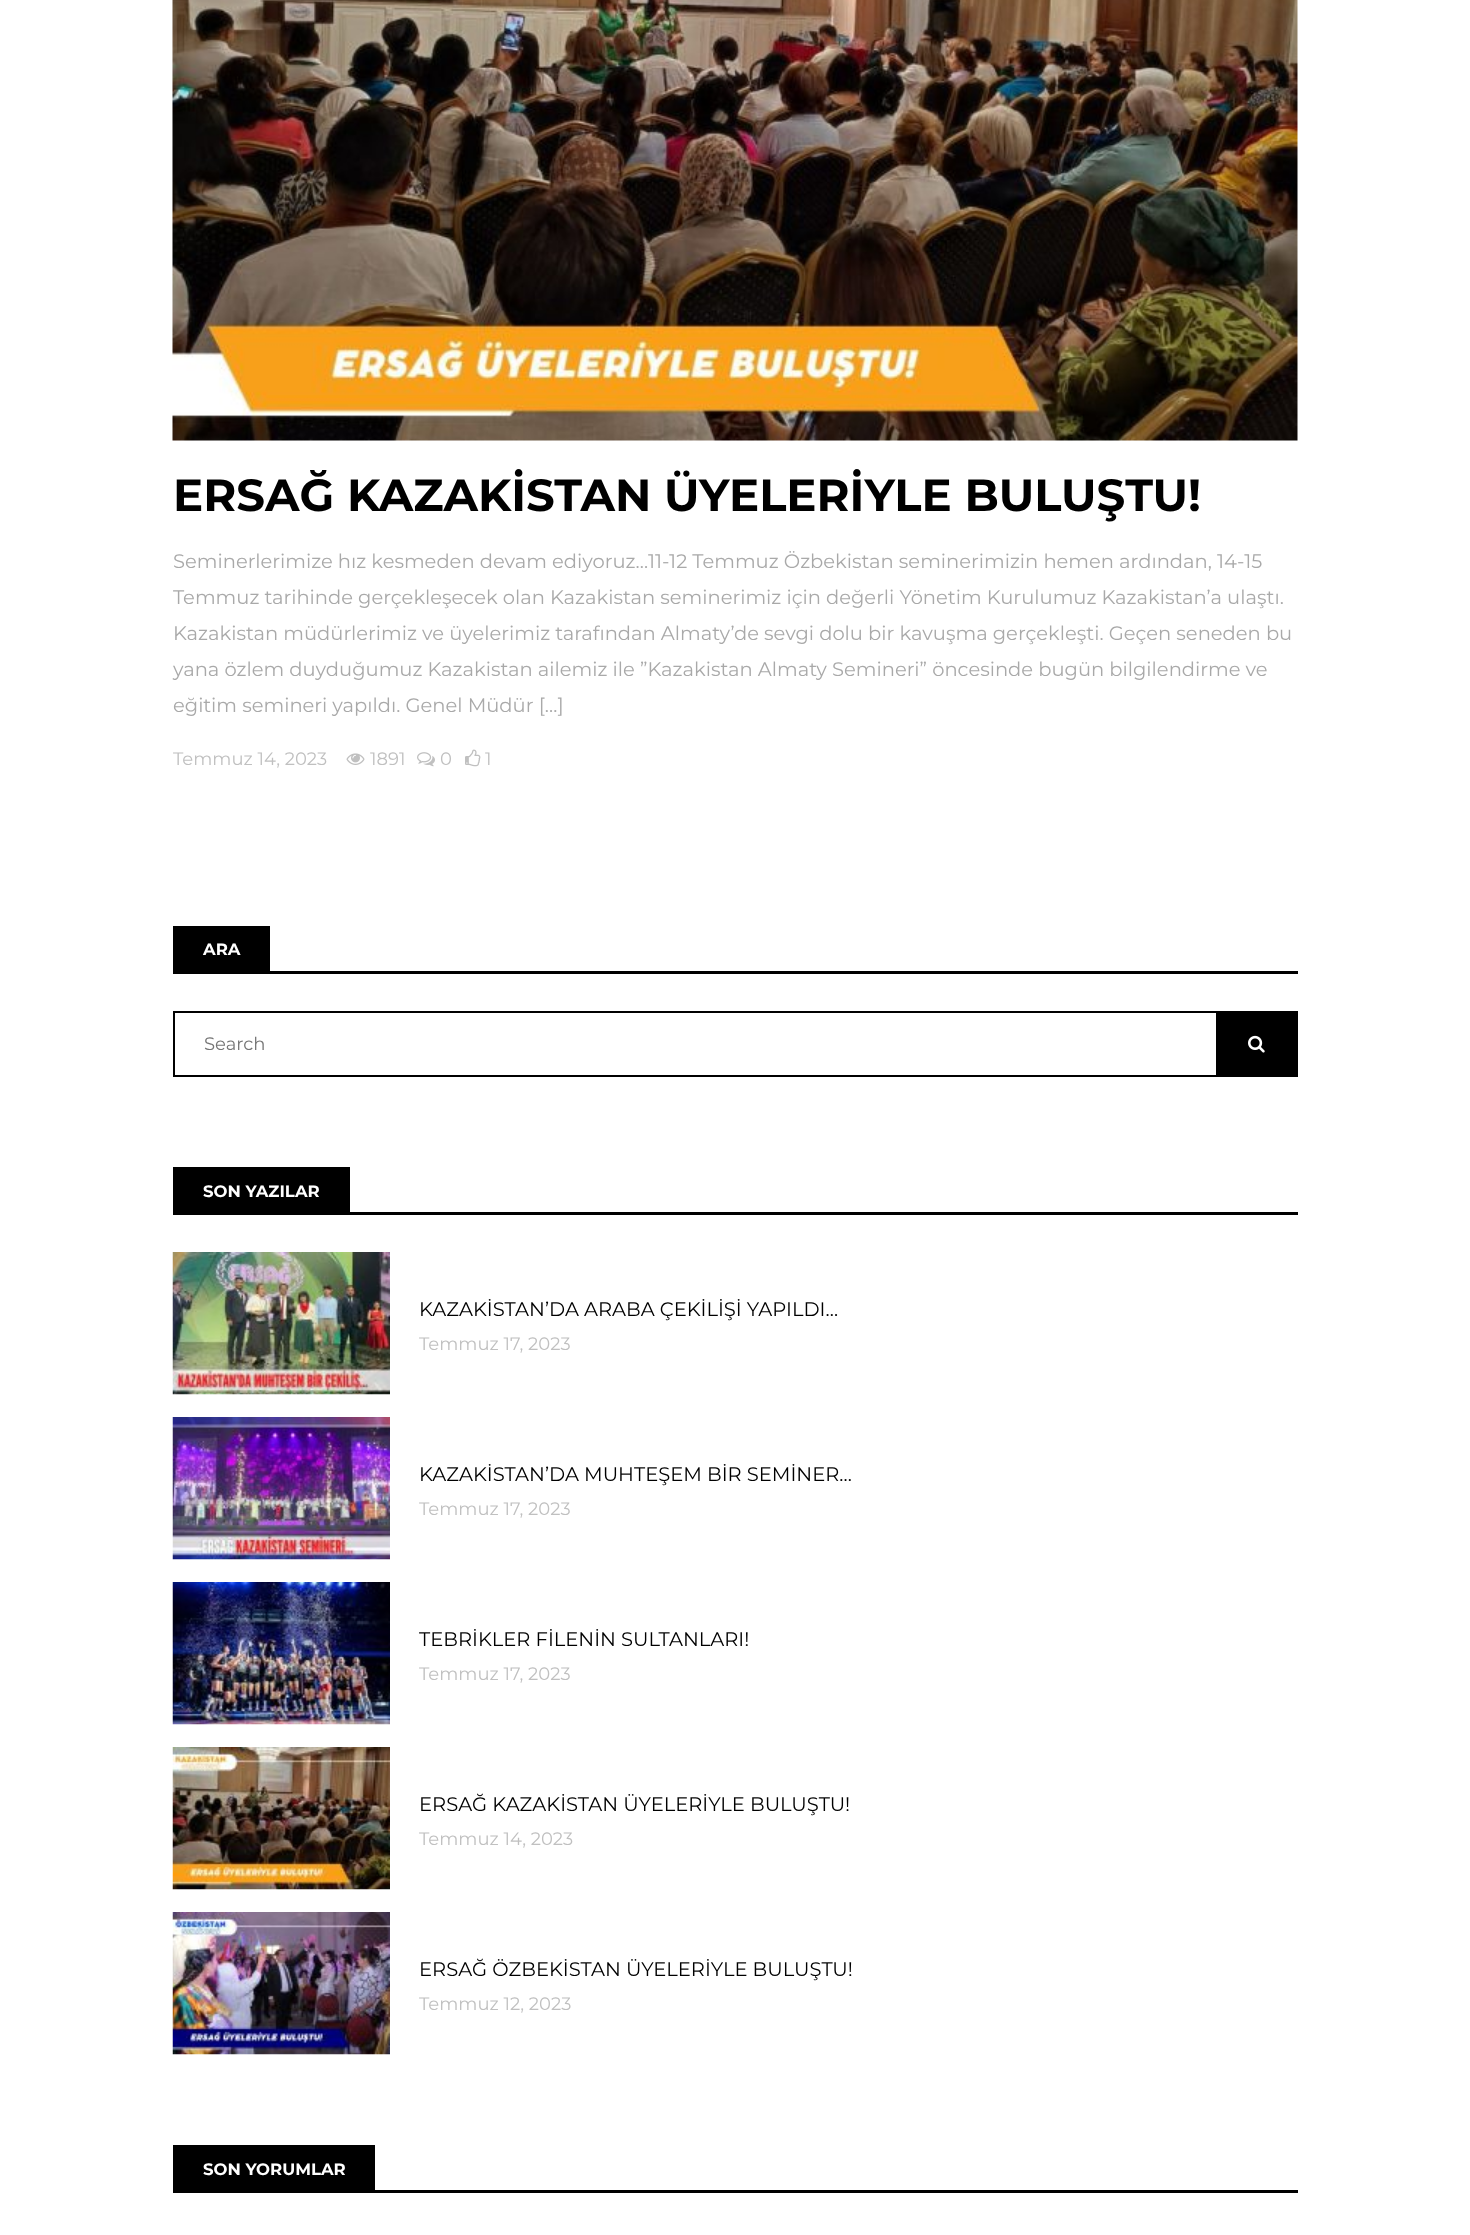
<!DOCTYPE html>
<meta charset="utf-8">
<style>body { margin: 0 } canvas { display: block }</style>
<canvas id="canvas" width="1470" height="2235"></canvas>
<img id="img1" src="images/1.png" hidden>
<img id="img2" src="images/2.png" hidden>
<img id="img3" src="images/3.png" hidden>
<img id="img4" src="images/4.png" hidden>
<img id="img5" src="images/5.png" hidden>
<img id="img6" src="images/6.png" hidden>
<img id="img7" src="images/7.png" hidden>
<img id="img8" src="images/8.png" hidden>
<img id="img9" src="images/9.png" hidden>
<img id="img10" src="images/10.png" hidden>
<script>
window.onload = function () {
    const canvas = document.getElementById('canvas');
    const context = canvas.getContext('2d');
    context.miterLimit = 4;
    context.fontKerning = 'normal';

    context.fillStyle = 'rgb(255, 255, 255)';
    context.fillRect(0, 0, 1470, 2235);
    context.drawImage(document.getElementById('img1'), 172, 0, 1126, 441);
    context.drawImage(document.getElementById('img2'), 346, 753, 19, 12);
    context.drawImage(document.getElementById('img3'), 417, 752, 18, 15);
    context.drawImage(document.getElementById('img4'), 465, 749, 16, 18);
    context.fillStyle = 'rgb(0, 0, 0)';
    context.fillRect(173, 971, 1125, 3);
    context.fillRect(173, 926, 97, 45);
    context.strokeStyle = 'rgb(0, 0, 0)';
    context.lineWidth = 2;
    context.strokeRect(174, 1012, 1043, 64);
    context.fillRect(1218, 1011, 80, 66);
    context.drawImage(document.getElementById('img5'), 1248, 1035, 17, 18);
    context.fillRect(173, 1212, 1125, 3);
    context.fillRect(173, 1167, 177, 45);
    context.drawImage(document.getElementById('img6'), 172, 1252, 218, 143);
    context.drawImage(document.getElementById('img7'), 172, 1417, 218, 143);
    context.drawImage(document.getElementById('img8'), 172, 1582, 218, 143);
    context.drawImage(document.getElementById('img9'), 172, 1747, 218, 143);
    context.drawImage(document.getElementById('img10'), 172, 1912, 218, 143);
    context.fillRect(173, 2190, 1125, 3);
    context.fillRect(173, 2145, 202, 45);
    context.font = 'bold 45px Montserrat';
    context.fillText('ERSAĞ KAZAKİSTAN ÜYELERİYLE BULUŞTU!', 173, 511);
    context.font = '19.5px Montserrat';
    context.fillStyle = 'rgb(169, 169, 169)';
    context.fillText('Seminerlerimize hız kesmeden devam ediyoruz…11-12 Temmuz Özbekistan seminerimizin hemen ardından, 14-15', 173, 568);
    context.fillText('Temmuz tarihinde gerçekleşecek olan Kazakistan seminerimiz için değerli Yönetim Kurulumuz Kazakistan’a ulaştı.', 173, 604);
    context.fillText('Kazakistan müdürlerimiz ve üyelerimiz tarafından Almaty’de sevgi dolu bir kavuşma gerçekleşti. Geçen seneden bu', 173, 640);
    context.fillText('yana özlem duyduğumuz Kazakistan ailemiz ile ”Kazakistan Almaty Semineri” öncesinde bugün bilgilendirme ve', 173, 676);
    context.fillText('eğitim semineri yapıldı. Genel Müdür […]', 173, 712);
    context.font = '18px Montserrat';
    context.fillStyle = 'rgb(192, 192, 192)';
    context.fillText('Temmuz 14, 2023', 173, 765);
    context.fillText('1891', 370, 765);
    context.fillText('0', 440, 765);
    context.fillText('1', 485, 765);
    context.font = 'bold 16.5px Montserrat';
    context.fillStyle = 'rgb(255, 255, 255)';
    context.fillText('ARA', 203, 955);
    context.font = '18px Montserrat';
    context.fillStyle = 'rgb(117, 117, 117)';
    context.fillText('Search', 204, 1050);
    context.font = 'bold 16.5px Montserrat';
    context.fillStyle = 'rgb(255, 255, 255)';
    context.fillText('SON YAZILAR', 203, 1197);
    context.font = '19.5px Montserrat';
    context.fillStyle = 'rgb(0, 0, 0)';
    context.fillText('KAZAKİSTAN’DA ARABA ÇEKİLİŞİ YAPILDI…', 419, 1316);
    context.font = '18px Montserrat';
    context.fillStyle = 'rgb(192, 192, 192)';
    context.fillText('Temmuz 17, 2023', 419, 1350);
    context.font = '19.5px Montserrat';
    context.fillStyle = 'rgb(0, 0, 0)';
    context.fillText('KAZAKİSTAN’DA MUHTEŞEM BİR SEMİNER…', 419, 1481);
    context.font = '18px Montserrat';
    context.fillStyle = 'rgb(192, 192, 192)';
    context.fillText('Temmuz 17, 2023', 419, 1515);
    context.font = '19.5px Montserrat';
    context.fillStyle = 'rgb(0, 0, 0)';
    context.fillText('TEBRİKLER FİLENİN SULTANLARI!', 419, 1646);
    context.font = '18px Montserrat';
    context.fillStyle = 'rgb(192, 192, 192)';
    context.fillText('Temmuz 17, 2023', 419, 1680);
    context.font = '19.5px Montserrat';
    context.fillStyle = 'rgb(0, 0, 0)';
    context.fillText('ERSAĞ KAZAKİSTAN ÜYELERİYLE BULUŞTU!', 419, 1811);
    context.font = '18px Montserrat';
    context.fillStyle = 'rgb(192, 192, 192)';
    context.fillText('Temmuz 14, 2023', 419, 1845);
    context.font = '19.5px Montserrat';
    context.fillStyle = 'rgb(0, 0, 0)';
    context.fillText('ERSAĞ ÖZBEKİSTAN ÜYELERİYLE BULUŞTU!', 419, 1976);
    context.font = '18px Montserrat';
    context.fillStyle = 'rgb(192, 192, 192)';
    context.fillText('Temmuz 12, 2023', 419, 2010);
    context.font = 'bold 16.5px Montserrat';
    context.fillStyle = 'rgb(255, 255, 255)';
    context.fillText('SON YORUMLAR', 203, 2175);
};
</script>
